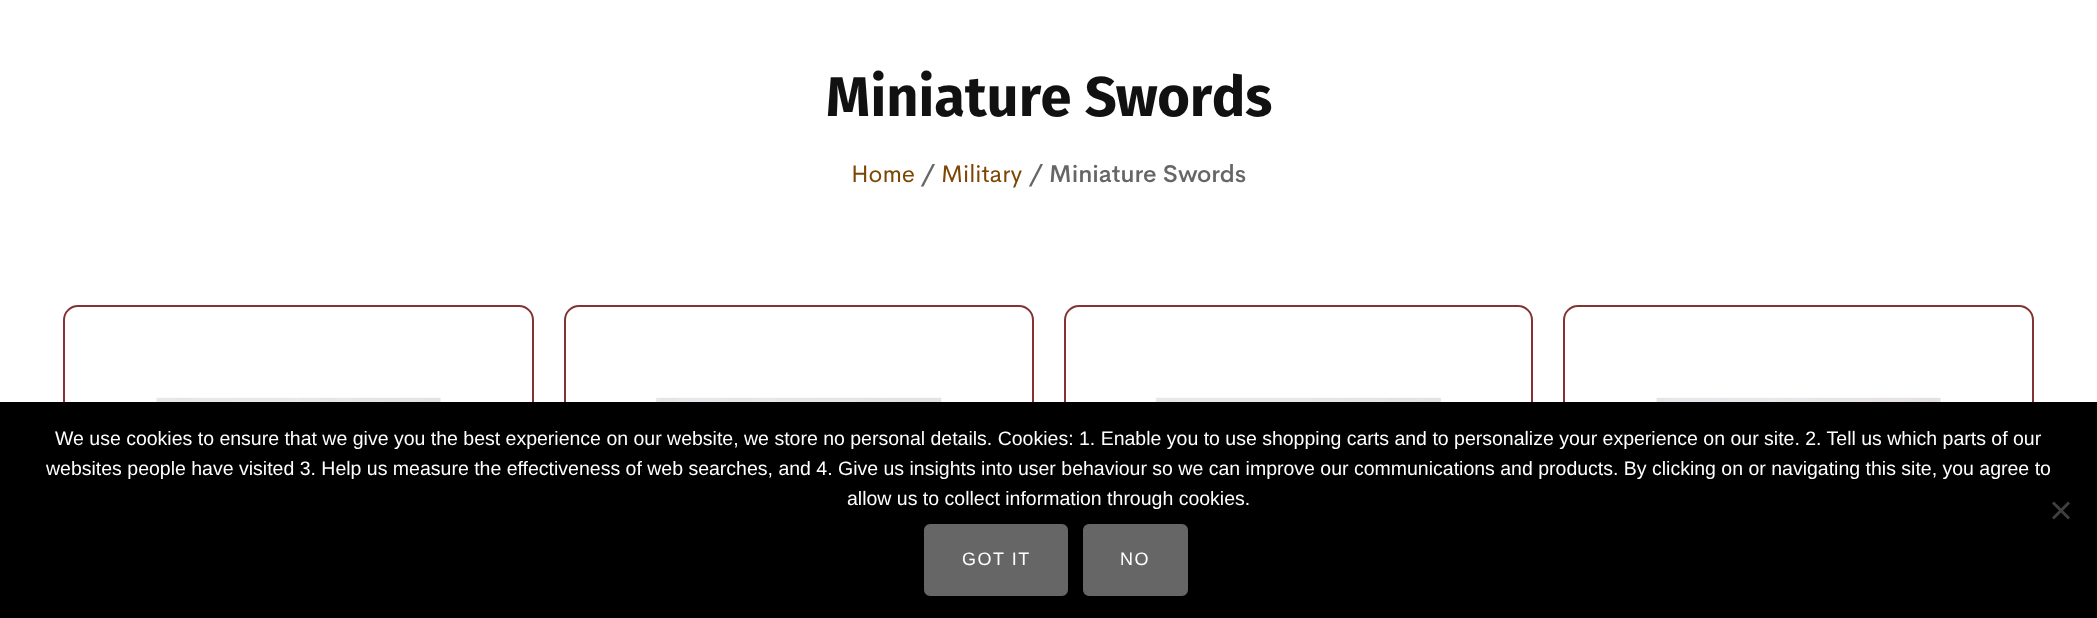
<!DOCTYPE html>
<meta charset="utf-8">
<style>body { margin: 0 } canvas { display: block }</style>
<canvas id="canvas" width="2097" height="618"></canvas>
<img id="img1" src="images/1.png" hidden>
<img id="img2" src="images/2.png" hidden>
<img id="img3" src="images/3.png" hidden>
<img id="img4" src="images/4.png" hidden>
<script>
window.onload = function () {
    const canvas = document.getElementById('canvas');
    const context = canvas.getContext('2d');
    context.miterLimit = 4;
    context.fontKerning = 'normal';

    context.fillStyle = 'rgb(255, 255, 255)';
    context.fillRect(0, 0, 2097, 618);
    context.beginPath();
    context.roundRect(64, 306, 469, 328, 14);
    context.strokeStyle = 'rgb(132, 50, 50)';
    context.lineWidth = 2;
    context.stroke();
    context.drawImage(document.getElementById('img1'), 156, 397, 285, 5);
    context.beginPath();
    context.roundRect(565, 306, 468, 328, 14);
    context.stroke();
    context.drawImage(document.getElementById('img2'), 656, 397, 286, 5);
    context.beginPath();
    context.roundRect(1065, 306, 467, 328, 14);
    context.stroke();
    context.drawImage(document.getElementById('img3'), 1155, 397, 286, 5);
    context.beginPath();
    context.roundRect(1564, 306, 469, 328, 14);
    context.stroke();
    context.drawImage(document.getElementById('img4'), 1656, 397, 285, 5);
    context.fillStyle = 'rgb(0, 0, 0)';
    context.fillRect(0, 402, 2097, 216);
    context.fillStyle = 'rgb(64, 64, 64)';
    context.beginPath();
    context.moveTo(2068, 501.5);
    context.lineTo(2070, 503.5);
    context.lineTo(2054, 519.5);
    context.lineTo(2052, 517.5);
    context.closePath();
    context.fill();
    context.beginPath();
    context.moveTo(2052, 503.5);
    context.lineTo(2054, 501.5);
    context.lineTo(2070, 517.5);
    context.lineTo(2068, 519.5);
    context.closePath();
    context.fill();
    context.fillStyle = 'rgb(102, 102, 102)';
    context.beginPath();
    context.roundRect(925, 525, 142, 70, 5);
    context.fill();
    context.strokeStyle = 'rgb(102, 102, 102)';
    context.stroke();
    context.beginPath();
    context.roundRect(1084, 525, 103, 70, 5);
    context.fill();
    context.stroke();
    context.font = 'bold 56px Fira Sans';
    context.fillStyle = 'rgb(17, 17, 17)';
    context.fillText('Miniature Swords', 826, 116);
    context.font = '24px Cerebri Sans';
    context.fillStyle = 'rgb(124, 70, 4)';
    context.fillText('Home', 851, 182);
    context.font = '500 24px Cerebri Sans';
    context.fillStyle = 'rgb(102, 102, 102)';
    context.fillText('/', 921, 182);
    context.font = '24px Cerebri Sans';
    context.fillStyle = 'rgb(124, 70, 4)';
    context.fillText('Military', 941, 182);
    context.font = '500 24px Cerebri Sans';
    context.fillStyle = 'rgb(102, 102, 102)';
    context.fillText('/ Miniature Swords', 1029, 182);
    context.font = '19.5px Liberation Sans';
    context.fillStyle = 'rgb(255, 255, 255)';
    context.fillText('We use cookies to ensure that we give you the best experience on our website, we store no personal details. Cookies: 1. Enable you to use shopping carts and to personalize your experience on our site. 2. Tell us which parts of our', 55, 445);
    context.fillText('websites people have visited 3. Help us measure the effectiveness of web searches, and 4. Give us insights into user behaviour so we can improve our communications and products. By clicking on or navigating this site, you agree to', 46, 475);
    context.fillText('allow us to collect information through cookies.', 847, 505);
    context.letterSpacing = '1.5px';
    context.font = '18px Liberation Sans';
    context.fillText('GOT IT', 962, 565);
    context.fillText('NO', 1120, 565);
};
</script>
